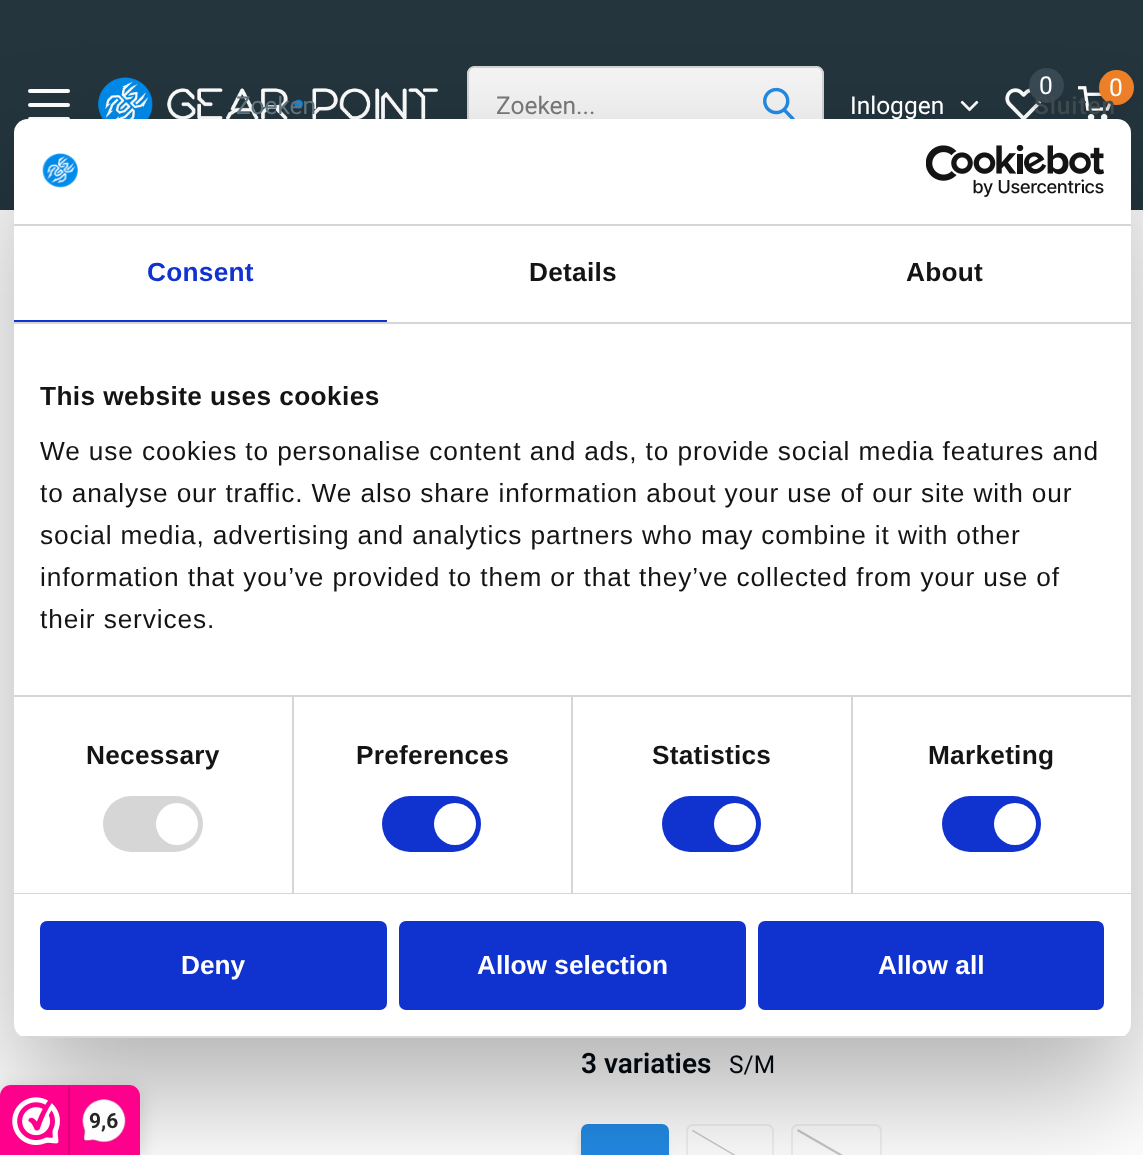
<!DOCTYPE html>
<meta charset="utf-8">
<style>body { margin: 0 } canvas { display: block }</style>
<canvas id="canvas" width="1143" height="1155"></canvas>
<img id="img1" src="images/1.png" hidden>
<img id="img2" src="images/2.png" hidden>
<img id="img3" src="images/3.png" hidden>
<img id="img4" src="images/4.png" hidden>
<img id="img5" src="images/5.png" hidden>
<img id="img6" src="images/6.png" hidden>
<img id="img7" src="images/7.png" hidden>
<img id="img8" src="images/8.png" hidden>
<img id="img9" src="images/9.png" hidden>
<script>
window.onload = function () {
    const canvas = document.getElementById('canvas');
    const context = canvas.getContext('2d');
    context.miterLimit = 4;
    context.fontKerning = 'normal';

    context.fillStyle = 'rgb(255, 255, 255)';
    context.fillRect(0, 0, 1143, 1155);
    context.fillStyle = 'rgb(36, 53, 62)';
    context.fillRect(0, 0, 1143, 210);
    context.fillStyle = 'rgb(255, 255, 255)';
    context.beginPath();
    context.roundRect(28, 89, 42, 4, 2);
    context.fill();
    context.beginPath();
    context.roundRect(28, 103, 42, 4, 2);
    context.fill();
    context.beginPath();
    context.roundRect(28, 117, 42, 4, 2);
    context.fill();
    context.drawImage(document.getElementById('img1'), 97, 77, 342, 42);
    context.drawImage(document.getElementById('img2'), 1005, 88, 37, 31);
    context.fillStyle = 'rgba(40, 40, 48, 0.25)';
    context.filter = 'blur(3.5px)';
    context.beginPath();
    context.roundRect(1029, 75, 35, 35, 17.5);
    context.fill();
    context.filter = 'none';
    context.fillStyle = 'rgb(57, 74, 84)';
    context.beginPath();
    context.arc(1046.5, 85.5, 17.5, 0, 2 * Math.PI);
    context.fill();
    context.drawImage(document.getElementById('img3'), 1078, 86, 34, 33);
    context.fillStyle = 'rgba(40, 40, 48, 0.25)';
    context.filter = 'blur(3.5px)';
    context.beginPath();
    context.roundRect(1099, 77, 35, 35, 17.5);
    context.fill();
    context.filter = 'none';
    context.fillStyle = 'rgb(239, 129, 40)';
    context.beginPath();
    context.arc(1116.5, 87.5, 17.5, 0, 2 * Math.PI);
    context.fill();
    context.fillStyle = 'rgb(245, 245, 245)';
    context.beginPath();
    context.roundRect(467, 67, 270, 78, [7, 0, 0, 7]);
    context.fill();
    context.fillStyle = 'rgb(212, 212, 212)';
    context.beginPath();
    context.moveTo(474, 66);
    context.lineTo(737, 66);
    context.lineTo(737, 145);
    context.lineTo(474, 145);
    context.bezierCurveTo(470, 145, 467, 142, 467, 138);
    context.lineTo(467, 74);
    context.bezierCurveTo(467, 70, 470, 66, 474, 66);
    context.closePath();
    context.moveTo(474, 68);
    context.lineTo(737, 68);
    context.lineTo(737, 144);
    context.lineTo(474, 144);
    context.bezierCurveTo(471, 144, 469, 141, 469, 138);
    context.lineTo(469, 74);
    context.bezierCurveTo(469, 71, 471, 68, 474, 68);
    context.closePath();
    context.fill('evenodd');
    context.fillStyle = 'rgb(245, 245, 245)';
    context.beginPath();
    context.roundRect(737, 67, 87, 78, [0, 7, 7, 0]);
    context.fill();
    context.fillStyle = 'rgb(212, 212, 212)';
    context.beginPath();
    context.moveTo(737, 66);
    context.lineTo(817, 66);
    context.bezierCurveTo(821, 66, 824, 70, 824, 74);
    context.lineTo(824, 138);
    context.bezierCurveTo(824, 142, 821, 145, 817, 145);
    context.lineTo(737, 145);
    context.closePath();
    context.moveTo(737, 68);
    context.lineTo(817, 68);
    context.bezierCurveTo(820, 68, 822, 71, 822, 74);
    context.lineTo(822, 138);
    context.bezierCurveTo(822, 141, 820, 144, 817, 144);
    context.lineTo(737, 144);
    context.closePath();
    context.fill('evenodd');
    context.drawImage(document.getElementById('img4'), 763, 87, 32, 32);
    context.drawImage(document.getElementById('img5'), 960, 100, 19, 12);
    context.fillStyle = 'rgba(0, 0, 0, 0.08)';
    context.filter = 'blur(3.5px)';
    context.beginPath();
    context.roundRect(579, 1131, 88, 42, 7);
    context.fill();
    context.filter = 'none';
    context.fillStyle = 'rgb(35, 139, 230)';
    context.beginPath();
    context.roundRect(582, 1125, 86, 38, 6);
    context.fill();
    context.strokeStyle = 'rgb(35, 139, 230)';
    context.lineWidth = 2;
    context.stroke();
    context.beginPath();
    context.roundRect(687, 1125, 86, 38, 6);
    context.strokeStyle = 'rgb(241, 241, 241)';
    context.stroke();
    context.fillStyle = 'rgb(200, 200, 200)';
    context.beginPath();
    context.moveTo(693, 1130);
    context.lineTo(768, 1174);
    context.lineTo(767, 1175);
    context.lineTo(692, 1131);
    context.closePath();
    context.fill();
    context.beginPath();
    context.roundRect(792, 1125, 89, 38, 6);
    context.stroke();
    context.beginPath();
    context.moveTo(798, 1129);
    context.lineTo(876, 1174);
    context.lineTo(875, 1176);
    context.lineTo(797, 1131);
    context.closePath();
    context.fill();
    context.fillStyle = 'rgba(0, 0, 0, 0.3)';
    context.filter = 'blur(59.5px)';
    context.beginPath();
    context.roundRect(14, 175, 1117, 919, 14);
    context.fill();
    context.filter = 'none';
    context.fillStyle = 'rgb(255, 255, 255)';
    context.beginPath();
    context.roundRect(14, 119, 1117, 919, 14);
    context.fill();
    context.fillStyle = 'rgb(214, 214, 214)';
    context.fillRect(14, 224, 1117, 2);
    context.drawImage(document.getElementById('img6'), 42, 153, 36, 35);
    context.drawImage(document.getElementById('img7'), 926, 145, 178, 52);
    context.fillRect(14, 322, 1117, 2);
    context.fillStyle = 'rgb(16, 50, 207)';
    context.fillRect(14, 320, 373, 2);
    context.fillStyle = 'rgb(214, 214, 214)';
    context.fillRect(14, 695, 1117, 2);
    context.fillRect(14, 893, 1117, 1);
    context.fillRect(292, 697, 2, 196);
    context.beginPath();
    context.roundRect(103, 796, 100, 56, 28);
    context.fill();
    context.fillStyle = 'rgb(255, 255, 255)';
    context.beginPath();
    context.arc(177, 824, 21, 0, 2 * Math.PI);
    context.fill();
    context.fillStyle = 'rgb(214, 214, 214)';
    context.fillRect(571, 697, 2, 196);
    context.fillStyle = 'rgb(16, 50, 207)';
    context.beginPath();
    context.roundRect(382, 796, 99, 56, 28);
    context.fill();
    context.fillStyle = 'rgb(255, 255, 255)';
    context.beginPath();
    context.arc(455, 824, 21, 0, 2 * Math.PI);
    context.fill();
    context.fillStyle = 'rgb(214, 214, 214)';
    context.fillRect(851, 697, 2, 196);
    context.fillStyle = 'rgb(16, 50, 207)';
    context.beginPath();
    context.roundRect(662, 796, 99, 56, 28);
    context.fill();
    context.fillStyle = 'rgb(255, 255, 255)';
    context.beginPath();
    context.arc(735, 824, 21, 0, 2 * Math.PI);
    context.fill();
    context.fillStyle = 'rgb(16, 50, 207)';
    context.beginPath();
    context.roundRect(942, 796, 99, 56, 28);
    context.fill();
    context.fillStyle = 'rgb(255, 255, 255)';
    context.beginPath();
    context.arc(1015, 824, 21, 0, 2 * Math.PI);
    context.fill();
    context.save();
    context.beginPath();
    context.roundRect(14, 119, 1117, 919, 14);
    context.clip();
    context.fillStyle = 'rgb(214, 214, 214)';
    context.fillRect(14, 1036, 1117, 2);
    context.restore();
    context.fillStyle = 'rgb(16, 50, 207)';
    context.beginPath();
    context.roundRect(42, 923, 343, 85, 5);
    context.fill();
    context.strokeStyle = 'rgb(16, 50, 207)';
    context.lineWidth = 4;
    context.stroke();
    context.beginPath();
    context.roundRect(401, 923, 343, 85, 5);
    context.fill();
    context.stroke();
    context.beginPath();
    context.roundRect(760, 923, 342, 85, 5);
    context.fill();
    context.stroke();
    context.fillStyle = 'rgba(0, 0, 0, 0.15)';
    context.filter = 'blur(9px)';
    context.beginPath();
    context.roundRect(0, 1089, 140, 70, 11);
    context.fill();
    context.filter = 'none';
    context.fillStyle = 'rgb(254, 0, 140)';
    context.beginPath();
    context.roundRect(0, 1085, 140, 70, [11, 11, 0, 0]);
    context.fill();
    context.drawImage(document.getElementById('img8'), 12, 1097, 48, 48);
    context.fillStyle = 'rgb(216, 0, 119)';
    context.fillRect(68, 1087, 2, 68);
    context.drawImage(document.getElementById('img9'), 82, 1099, 44, 44);
    context.font = '24.5px Roboto';
    context.fillStyle = 'rgb(255, 255, 255)';
    context.fillText('0', 1039, 94);
    context.fillText('0', 1109, 96);
    context.fillStyle = 'rgb(117, 117, 117)';
    context.fillText('Zoeken...', 496, 114);
    context.fillStyle = 'rgb(255, 255, 255)';
    context.fillText('Inloggen', 850, 114);
    context.fillStyle = 'rgb(96, 116, 127)';
    context.fillText('Zoeken', 236, 114);
    context.letterSpacing = '0.88px';
    context.font = '500 24.5px Roboto';
    context.fillStyle = 'rgb(63, 74, 79)';
    context.fillText('Sluiten', 1034, 114);
    context.letterSpacing = '0.25px';
    context.font = 'bold 26.25px Liberation Sans';
    context.fillStyle = 'rgb(16, 50, 207)';
    context.fillText('Consent', 147, 281);
    context.fillStyle = 'rgb(20, 20, 20)';
    context.fillText('Details', 529, 281);
    context.fillText('About', 906, 281);
    context.letterSpacing = '0.4px';
    context.fillText('This website uses cookies', 40, 405);
    context.letterSpacing = '0.88px';
    context.font = '26.25px Liberation Sans';
    context.fillText('We use cookies to personalise content and ads, to provide social media features and', 40, 460);
    context.fillText('to analyse our traffic. We also share information about your use of our site with our', 40, 502);
    context.fillText('social media, advertising and analytics partners who may combine it with other', 40, 544);
    context.fillText('information that you’ve provided to them or that they’ve collected from your use of', 40, 586);
    context.fillText('their services.', 40, 628);
    context.letterSpacing = '0.25px';
    context.font = 'bold 26.25px Liberation Sans';
    context.fillText('Necessary', 86, 764);
    context.fillText('Preferences', 356, 764);
    context.fillText('Statistics', 652, 764);
    context.fillText('Marketing', 928, 764);
    context.letterSpacing = '0px';
    context.fillStyle = 'rgb(255, 255, 255)';
    context.fillText('Deny', 181, 974);
    context.fillText('Allow selection', 477, 974);
    context.fillText('Allow all', 878, 974);
    context.font = '600 28px Roboto';
    context.fillStyle = 'rgb(3, 8, 14)';
    context.fillText('3 variaties', 581, 1073);
    context.font = '24.5px Roboto';
    context.fillText('S/M', 729, 1073);
    context.font = 'bold 21px Roboto';
    context.fillStyle = 'rgb(39, 38, 38)';
    context.fillText('9,6', 89, 1128);
};
</script>
